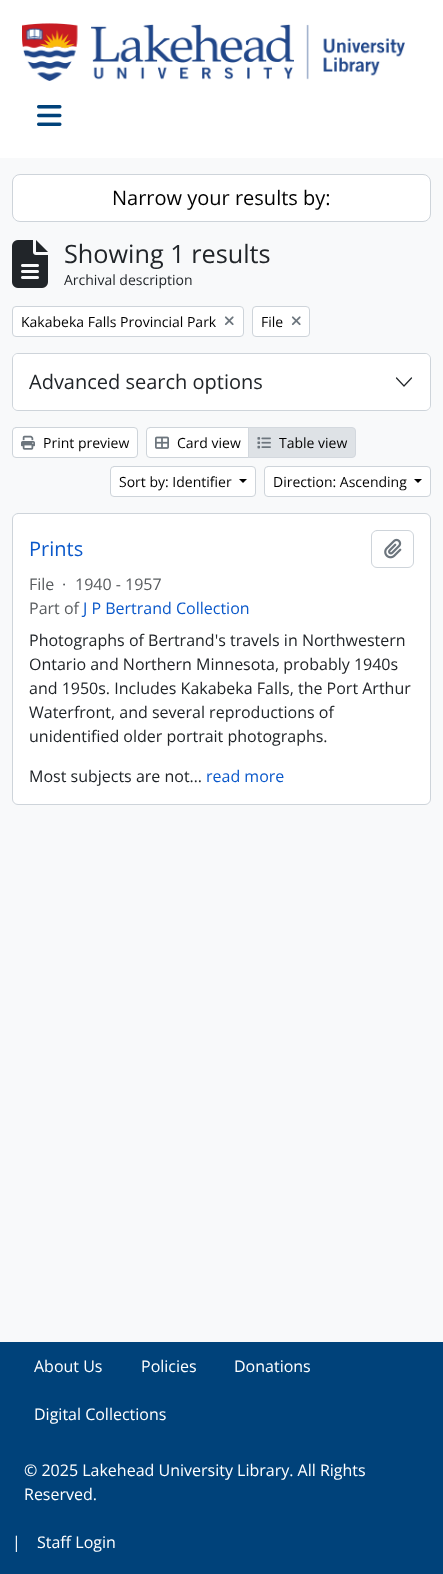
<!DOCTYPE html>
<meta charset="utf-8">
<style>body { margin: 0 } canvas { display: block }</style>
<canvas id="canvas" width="443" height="1574"></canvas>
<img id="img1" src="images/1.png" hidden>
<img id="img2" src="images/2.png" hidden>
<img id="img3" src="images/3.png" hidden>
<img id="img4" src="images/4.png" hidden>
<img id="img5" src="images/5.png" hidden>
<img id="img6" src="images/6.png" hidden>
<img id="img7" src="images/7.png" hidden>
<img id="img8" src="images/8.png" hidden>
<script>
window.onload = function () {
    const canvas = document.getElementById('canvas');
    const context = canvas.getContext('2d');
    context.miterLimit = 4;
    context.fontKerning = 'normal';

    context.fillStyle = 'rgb(248, 249, 250)';
    context.fillRect(0, 0, 443, 1574);
    context.fillStyle = 'rgb(255, 255, 255)';
    context.fillRect(0, 0, 443, 158);
    context.drawImage(document.getElementById('img1'), 22, 23, 383, 58);
    context.drawImage(document.getElementById('img2'), 37, 105, 25, 21);
    context.beginPath();
    context.roundRect(12.5, 174.5, 418, 47, 7.5);
    context.fill();
    context.strokeStyle = 'rgb(206, 212, 218)';
    context.stroke();
    context.drawImage(document.getElementById('img3'), 12, 240, 36, 48);
    context.beginPath();
    context.roundRect(12.5, 306.5, 231, 30, 3.5);
    context.fill();
    context.stroke();
    context.drawImage(document.getElementById('img4'), 224, 316, 10, 10);
    context.beginPath();
    context.roundRect(252.5, 306.5, 57, 30, 3.5);
    context.fill();
    context.stroke();
    context.drawImage(document.getElementById('img4'), 291, 316, 10, 10);
    context.beginPath();
    context.roundRect(12.5, 353.5, 418, 57, 5.5);
    context.stroke();
    context.beginPath();
    context.roundRect(13, 354, 417, 56, 5);
    context.fill();
    context.beginPath();
    context.moveTo(396.5, 378);
    context.lineTo(404, 386);
    context.lineTo(411.5, 378);
    context.strokeStyle = 'rgb(33, 37, 41)';
    context.lineWidth = 1.2;
    context.lineCap = 'round';
    context.lineJoin = 'round';
    context.stroke();
    context.beginPath();
    context.roundRect(12.5, 427.5, 125, 30, 3.5);
    context.fill();
    context.strokeStyle = 'rgb(206, 212, 218)';
    context.lineWidth = 1;
    context.lineJoin = 'miter';
    context.stroke();
    context.drawImage(document.getElementById('img5'), 21, 435, 14, 15);
    context.beginPath();
    context.roundRect(146.5, 427.5, 102, 30, [3.5, 0, 0, 3.5]);
    context.fill();
    context.stroke();
    context.drawImage(document.getElementById('img6'), 155, 436, 14, 13);
    context.fillStyle = 'rgb(222, 226, 230)';
    context.beginPath();
    context.roundRect(248.5, 427.5, 107, 30, [0, 3.5, 3.5, 0]);
    context.fill();
    context.strokeStyle = 'rgb(211, 216, 222)';
    context.stroke();
    context.drawImage(document.getElementById('img7'), 257, 437, 14, 12);
    context.fillStyle = 'rgb(255, 255, 255)';
    context.beginPath();
    context.roundRect(110.5, 466.5, 145, 30, 3.5);
    context.fill();
    context.strokeStyle = 'rgb(206, 212, 218)';
    context.stroke();
    context.fillStyle = 'rgb(0, 0, 0)';
    context.beginPath();
    context.moveTo(239, 479);
    context.lineTo(247, 479);
    context.lineTo(243, 483);
    context.closePath();
    context.fill();
    context.fillStyle = 'rgb(255, 255, 255)';
    context.beginPath();
    context.roundRect(264.5, 466.5, 166, 30, 3.5);
    context.fill();
    context.stroke();
    context.fillStyle = 'rgb(0, 0, 0)';
    context.beginPath();
    context.moveTo(414, 479);
    context.lineTo(422, 479);
    context.lineTo(418, 483);
    context.closePath();
    context.fill();
    context.fillStyle = 'rgb(255, 255, 255)';
    context.beginPath();
    context.roundRect(12.5, 513.5, 418, 291, 5.5);
    context.fill();
    context.stroke();
    context.beginPath();
    context.roundRect(371.5, 530.5, 42, 37, 5.5);
    context.stroke();
    context.drawImage(document.getElementById('img8'), 384, 538, 18, 21);
    context.fillStyle = 'rgb(0, 66, 122)';
    context.fillRect(0, 1342, 443, 232);
    context.font = '20px Open Sans';
    context.fillStyle = 'rgb(0, 0, 0)';
    context.fillText('Narrow your results by:', 112, 205);
    context.font = '25.25px Open Sans';
    context.fillStyle = 'rgb(33, 37, 41)';
    context.fillText('Showing 1 results', 64, 263);
    context.font = '14px Open Sans';
    context.fillText('Archival description', 64, 285);
    context.fillStyle = 'rgb(0, 0, 0)';
    context.fillText('Kakabeka Falls Provincial Park', 21, 327);
    context.fillText('File', 261, 327);
    context.font = '20px Open Sans';
    context.fillStyle = 'rgb(33, 37, 41)';
    context.fillText('Advanced search options', 29, 389);
    context.font = '14px Open Sans';
    context.fillStyle = 'rgb(0, 0, 0)';
    context.fillText('Print preview', 43, 448);
    context.fillText('Card view', 177, 448);
    context.fillText('Table view', 279, 448);
    context.fillText('Sort by: Identifier', 119, 487);
    context.fillText('Direction: Ascending', 273, 487);
    context.font = '20px Open Sans';
    context.fillStyle = 'rgb(10, 88, 202)';
    context.fillText('Prints', 29, 556);
    context.font = '16px Open Sans';
    context.fillStyle = 'rgb(89, 92, 95)';
    context.fillText('File', 29, 590);
    context.fillText('·', 62, 590);
    context.fillText('1940 - 1957', 75, 590);
    context.fillText('Part of', 29, 614);
    context.fillStyle = 'rgb(10, 88, 202)';
    context.fillText('J P Bertrand Collection', 83, 614);
    context.fillStyle = 'rgb(33, 37, 41)';
    context.fillText('Photographs of Bertrand\'s travels in Northwestern', 29, 646);
    context.fillText('Ontario and Northern Minnesota, probably 1940s', 29, 670);
    context.fillText('and 1950s. Includes Kakabeka Falls, the Port Arthur', 29, 694);
    context.fillText('Waterfront, and several reproductions of', 29, 718);
    context.fillText('unidentified older portrait photographs.', 29, 742);
    context.fillText('Most subjects are not…', 29, 782);
    context.fillStyle = 'rgb(10, 88, 202)';
    context.fillText('read more', 206, 782);
    context.fillStyle = 'rgb(255, 255, 255)';
    context.fillText('About Us', 34, 1372);
    context.fillText('Policies', 141, 1372);
    context.fillText('Donations', 234, 1372);
    context.fillText('Digital Collections', 34, 1420);
    context.fillText('© 2025 Lakehead University Library. All Rights', 24, 1476);
    context.fillText('Reserved.', 24, 1500);
    context.fillText('|', 12, 1548);
    context.fillText('Staff Login', 37, 1548);
};
</script>
